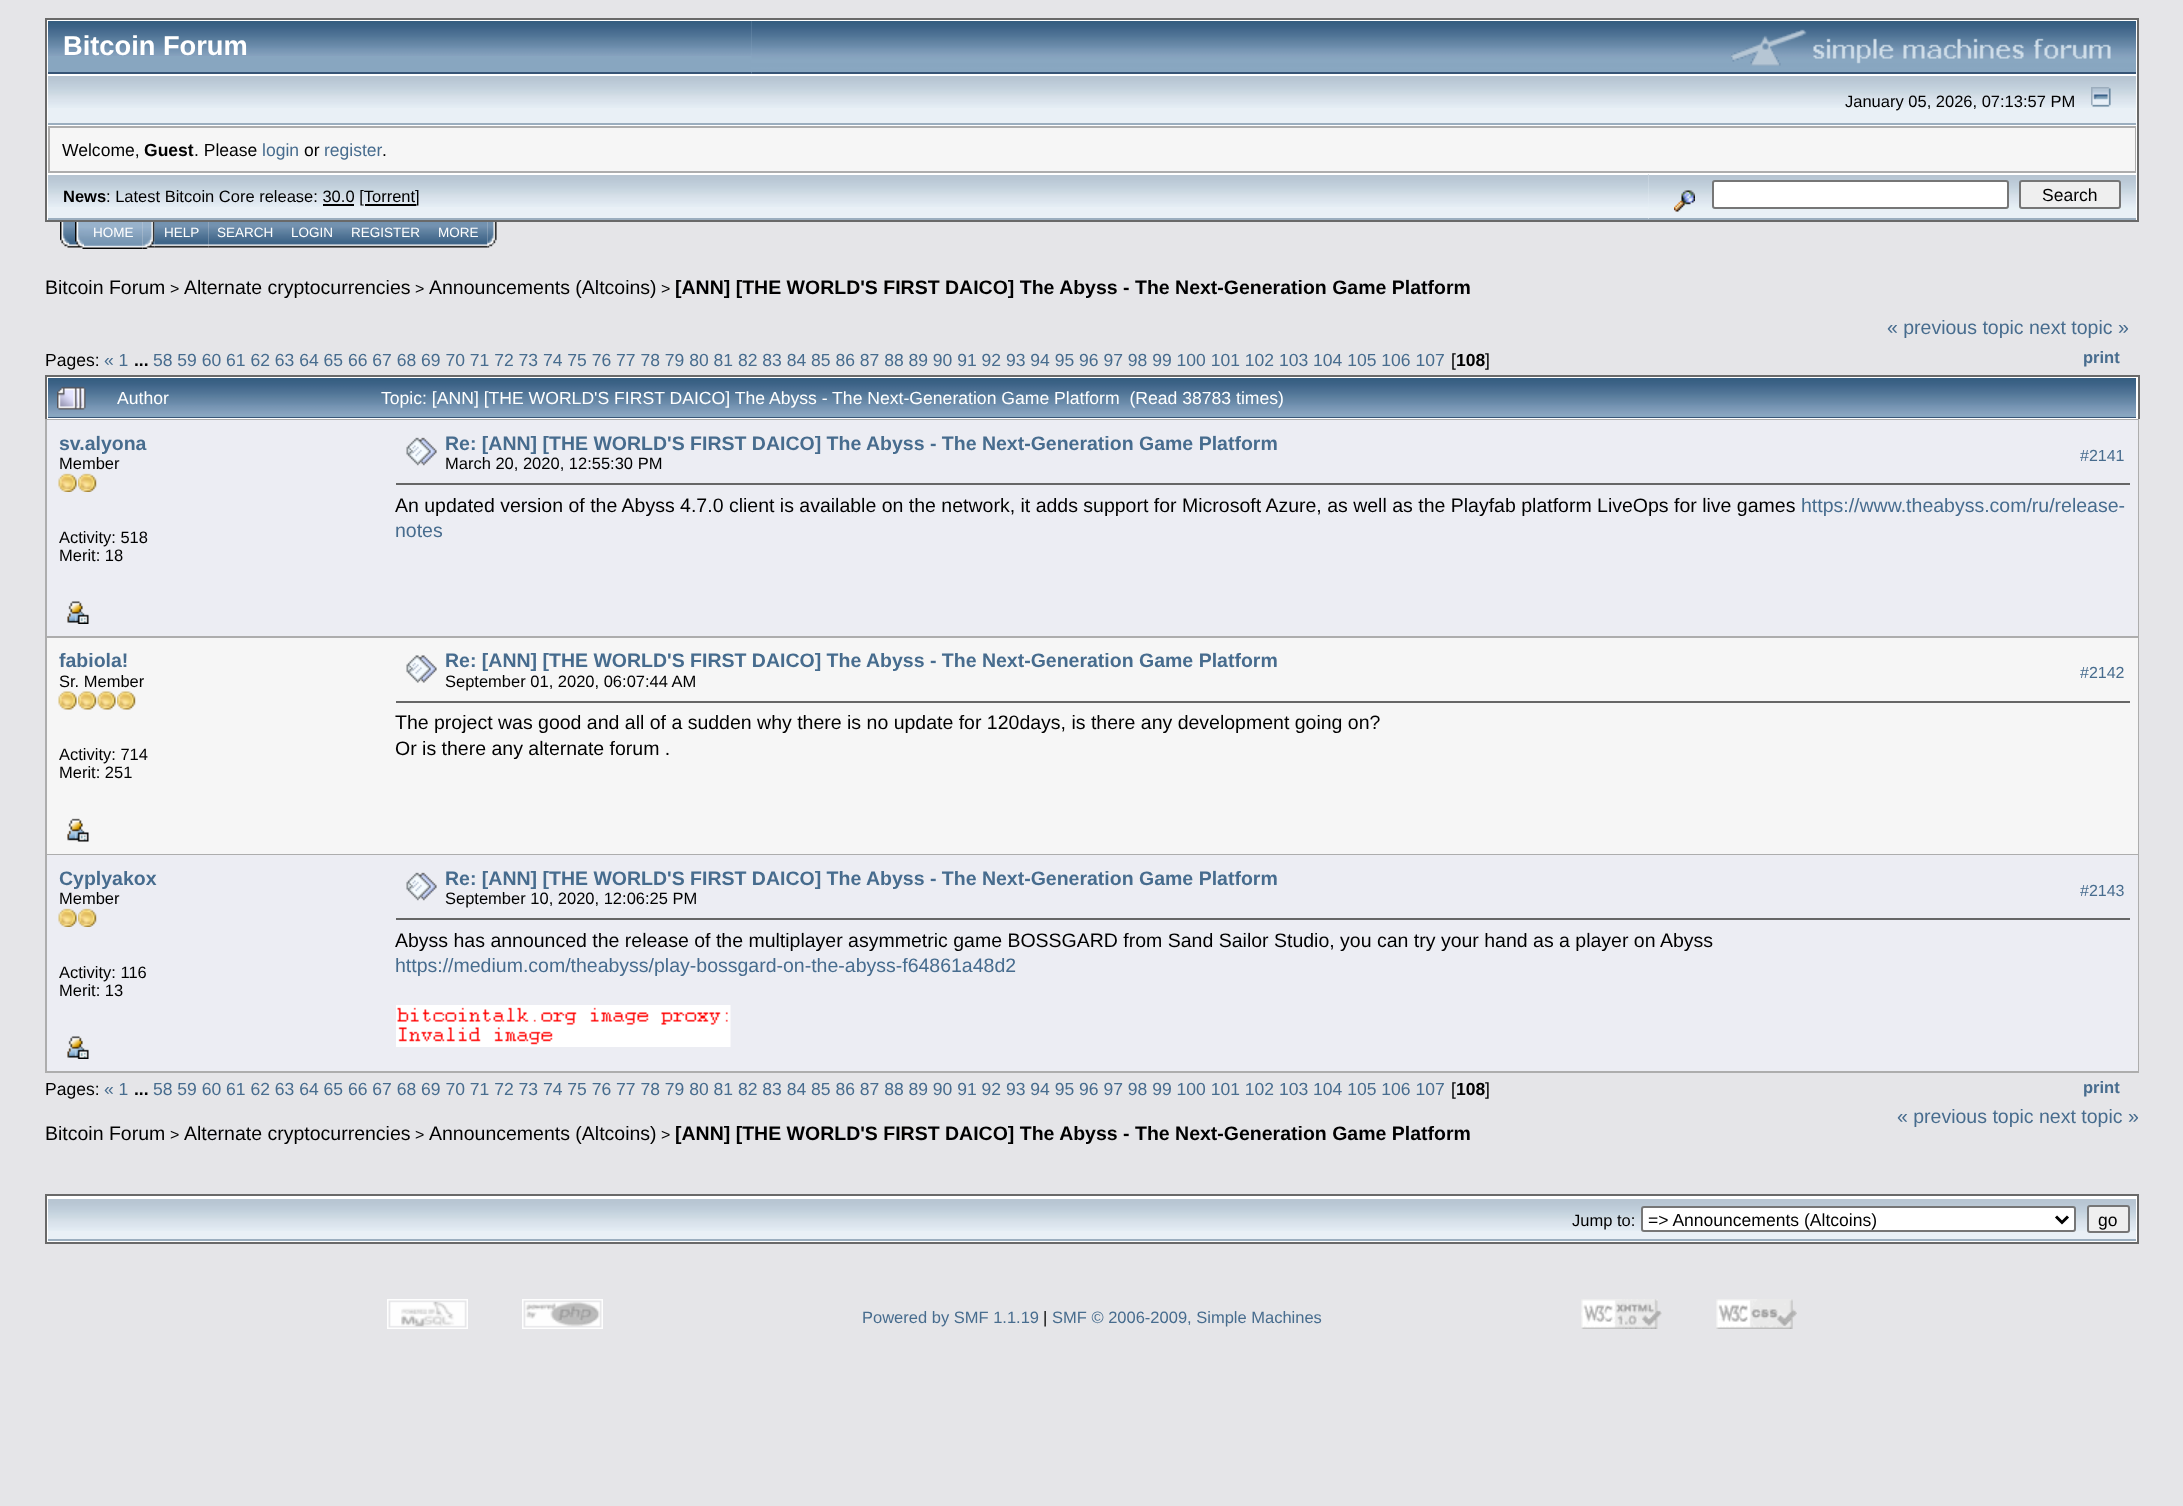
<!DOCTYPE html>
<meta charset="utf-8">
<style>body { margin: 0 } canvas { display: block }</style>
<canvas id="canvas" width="2183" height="1506"></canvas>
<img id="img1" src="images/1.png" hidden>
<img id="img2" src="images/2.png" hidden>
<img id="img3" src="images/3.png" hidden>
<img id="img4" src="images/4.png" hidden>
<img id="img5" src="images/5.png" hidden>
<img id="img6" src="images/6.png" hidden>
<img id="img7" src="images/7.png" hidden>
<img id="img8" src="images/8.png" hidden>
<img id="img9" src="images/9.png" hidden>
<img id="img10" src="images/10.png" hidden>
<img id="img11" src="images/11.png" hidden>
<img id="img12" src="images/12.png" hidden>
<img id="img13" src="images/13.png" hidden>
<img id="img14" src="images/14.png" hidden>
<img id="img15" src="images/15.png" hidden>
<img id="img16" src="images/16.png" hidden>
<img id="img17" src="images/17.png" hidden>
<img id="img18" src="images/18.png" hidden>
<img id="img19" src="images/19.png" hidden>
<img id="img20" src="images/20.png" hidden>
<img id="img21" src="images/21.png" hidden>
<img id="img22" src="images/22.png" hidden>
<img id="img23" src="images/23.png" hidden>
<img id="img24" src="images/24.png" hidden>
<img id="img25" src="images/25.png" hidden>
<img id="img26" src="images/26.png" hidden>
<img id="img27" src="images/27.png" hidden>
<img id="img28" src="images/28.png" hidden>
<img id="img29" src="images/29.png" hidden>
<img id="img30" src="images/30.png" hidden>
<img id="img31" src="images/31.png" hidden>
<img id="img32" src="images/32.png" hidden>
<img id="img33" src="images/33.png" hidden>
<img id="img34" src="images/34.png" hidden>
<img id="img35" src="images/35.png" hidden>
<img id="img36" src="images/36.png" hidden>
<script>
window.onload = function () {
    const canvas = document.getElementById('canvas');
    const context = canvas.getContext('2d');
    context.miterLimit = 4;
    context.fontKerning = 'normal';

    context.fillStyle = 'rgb(229, 229, 232)';
    context.fillRect(0, 0, 2183, 1506);
    context.fillStyle = 'rgb(255, 255, 255)';
    context.beginPath();
    context.rect(46, 19, 2092, 202);
    context.fill();
    context.strokeStyle = 'rgb(105, 105, 105)';
    context.lineWidth = 2;
    context.stroke();
    context.fillStyle = 'rgb(136, 166, 192)';
    context.fillRect(48, 21, 704, 51);
    context.drawImage(document.getElementById('img1'), 48, 21, 704, 35);
    context.fillStyle = 'rgb(55, 85, 118)';
    context.fillRect(48, 72, 704, 2);
    context.drawImage(document.getElementById('img2'), 751, 21, 1385, 53);
    context.fillRect(752, 72, 1384, 2);
    context.drawImage(document.getElementById('img3'), 1731, 29, 380, 37);
    context.fillStyle = 'rgb(233, 240, 246)';
    context.fillRect(48, 108, 2088, 15);
    context.drawImage(document.getElementById('img4'), 48, 76, 2088, 32);
    context.fillStyle = 'rgb(155, 174, 191)';
    context.fillRect(48, 123, 2088, 2);
    context.drawImage(document.getElementById('img5'), 2091, 87, 20, 20);
    context.fillStyle = 'rgb(173, 173, 173)';
    context.fillRect(48, 126, 2088, 47);
    context.fillStyle = 'rgb(246, 246, 246)';
    context.fillRect(50, 128, 2085, 43);
    context.fillStyle = 'rgb(233, 240, 246)';
    context.fillRect(48, 175, 1601, 43);
    context.drawImage(document.getElementById('img6'), 48, 175, 1601, 32);
    context.fillStyle = 'rgb(155, 174, 191)';
    context.fillRect(48, 218, 1601, 2);
    context.fillStyle = 'rgb(0, 0, 0)';
    context.fillRect(323, 204, 31, 2);
    context.fillRect(365, 204, 51, 2);
    context.drawImage(document.getElementById('img7'), 1648, 174, 488, 45);
    context.fillStyle = 'rgb(255, 255, 255)';
    context.fillRect(1649, 174, 487, 1);
    context.fillStyle = 'rgb(155, 174, 191)';
    context.fillRect(1649, 218, 487, 2);
    context.drawImage(document.getElementById('img8'), 1674, 190, 21, 22);
    context.fillStyle = 'rgb(255, 255, 255)';
    context.beginPath();
    context.roundRect(1713, 181, 295, 27, 2);
    context.fill();
    context.strokeStyle = 'rgb(118, 118, 118)';
    context.stroke();
    context.fillStyle = 'rgb(239, 239, 239)';
    context.beginPath();
    context.roundRect(2020, 181, 100, 27, 2);
    context.fill();
    context.stroke();
    context.drawImage(document.getElementById('img9'), 60, 222, 15, 26);
    context.drawImage(document.getElementById('img10'), 75, 222, 9, 27);
    context.drawImage(document.getElementById('img11'), 84, 222, 59, 27);
    context.drawImage(document.getElementById('img12'), 142, 222, 13, 27);
    context.drawImage(document.getElementById('img13'), 154, 222, 55, 26);
    context.drawImage(document.getElementById('img14'), 208, 222, 74, 26);
    context.drawImage(document.getElementById('img15'), 282, 222, 60, 26);
    context.drawImage(document.getElementById('img16'), 342, 222, 87, 26);
    context.drawImage(document.getElementById('img17'), 429, 222, 59, 26);
    context.drawImage(document.getElementById('img18'), 487, 222, 10, 26);
    context.fillStyle = 'rgb(255, 255, 255)';
    context.fillRect(47, 377, 2091, 42);
    context.fillStyle = 'rgb(105, 105, 105)';
    context.fillRect(45, 375, 2094, 2);
    context.fillRect(2138, 375, 2, 44);
    context.fillRect(45, 375, 2, 44);
    context.fillStyle = 'rgb(55, 85, 118)';
    context.fillRect(48, 417, 2088, 1);
    context.fillStyle = 'rgb(136, 166, 192)';
    context.fillRect(48, 414, 2088, 3);
    context.drawImage(document.getElementById('img19'), 48, 378, 54, 36);
    context.drawImage(document.getElementById('img20'), 57, 386, 29, 24);
    context.drawImage(document.getElementById('img21'), 102, 378, 270, 36);
    context.drawImage(document.getElementById('img22'), 372, 378, 1764, 36);
    context.fillStyle = 'rgb(173, 173, 173)';
    context.fillRect(45, 419, 2094, 654);
    context.fillStyle = 'rgb(236, 237, 243)';
    context.fillRect(47, 420, 2091, 216);
    context.drawImage(document.getElementById('img23'), 58, 473, 19, 19);
    context.drawImage(document.getElementById('img24'), 78, 473, 19, 19);
    context.drawImage(document.getElementById('img25'), 67, 601, 22, 23);
    context.drawImage(document.getElementById('img26'), 406, 437, 31, 29);
    context.fillStyle = 'rgb(102, 102, 102)';
    context.fillRect(396, 483, 1734, 2);
    context.fillStyle = 'rgb(246, 246, 246)';
    context.fillRect(47, 638, 2091, 216);
    context.drawImage(document.getElementById('img27'), 58, 691, 19, 19);
    context.drawImage(document.getElementById('img28'), 78, 691, 19, 19);
    context.drawImage(document.getElementById('img27'), 97, 691, 19, 19);
    context.drawImage(document.getElementById('img28'), 117, 691, 19, 19);
    context.drawImage(document.getElementById('img29'), 67, 818, 22, 24);
    context.drawImage(document.getElementById('img30'), 406, 655, 31, 28);
    context.fillStyle = 'rgb(102, 102, 102)';
    context.fillRect(396, 701, 1734, 2);
    context.fillStyle = 'rgb(236, 237, 243)';
    context.fillRect(47, 855, 2091, 216);
    context.drawImage(document.getElementById('img23'), 58, 908, 19, 19);
    context.drawImage(document.getElementById('img24'), 78, 908, 19, 19);
    context.drawImage(document.getElementById('img25'), 67, 1036, 22, 23);
    context.drawImage(document.getElementById('img26'), 406, 872, 31, 29);
    context.fillStyle = 'rgb(102, 102, 102)';
    context.fillRect(396, 918, 1734, 2);
    context.drawImage(document.getElementById('img31'), 396, 1005, 335, 42);
    context.fillStyle = 'rgb(255, 255, 255)';
    context.beginPath();
    context.rect(46, 1195, 2092, 48);
    context.fill();
    context.strokeStyle = 'rgb(105, 105, 105)';
    context.stroke();
    context.fillStyle = 'rgb(233, 240, 246)';
    context.fillRect(48, 1231, 2088, 8);
    context.drawImage(document.getElementById('img32'), 48, 1199, 2088, 32);
    context.fillStyle = 'rgb(155, 174, 191)';
    context.fillRect(48, 1239, 2088, 2);
    context.fillStyle = 'rgb(255, 255, 255)';
    context.beginPath();
    context.roundRect(1642, 1207, 433, 24, 2);
    context.fill();
    context.strokeStyle = 'rgb(118, 118, 118)';
    context.stroke();
    context.beginPath();
    context.moveTo(2056, 1216.5);
    context.lineTo(2062, 1222.5);
    context.lineTo(2068, 1216.5);
    context.strokeStyle = 'rgb(0, 0, 0)';
    context.lineWidth = 3;
    context.stroke();
    context.fillStyle = 'rgb(239, 239, 239)';
    context.beginPath();
    context.roundRect(2088, 1206, 41, 26, 2);
    context.fill();
    context.strokeStyle = 'rgb(118, 118, 118)';
    context.lineWidth = 2;
    context.stroke();
    context.drawImage(document.getElementById('img33'), 387, 1299, 81, 30);
    context.drawImage(document.getElementById('img34'), 522, 1299, 81, 30);
    context.drawImage(document.getElementById('img35'), 1581, 1299, 81, 30);
    context.drawImage(document.getElementById('img36'), 1716, 1299, 81, 30);
    context.font = 'bold 27.25px Liberation Sans';
    context.fillStyle = 'rgb(255, 255, 255)';
    context.fillText('Bitcoin Forum', 63, 55);
    context.font = '16.5px Liberation Sans';
    context.fillStyle = 'rgb(0, 0, 0)';
    context.fillText('January 05, 2026, 07:13:57 PM', 1845, 107);
    context.font = '17.55px Liberation Sans';
    context.fillText('Welcome,', 62, 156);
    context.font = 'bold 17.55px Liberation Sans';
    context.fillText('Guest', 144, 156);
    context.font = '17.55px Liberation Sans';
    context.fillText('. Please', 194, 156);
    context.fillStyle = 'rgb(71, 108, 142)';
    context.fillText('login', 262, 156);
    context.fillStyle = 'rgb(0, 0, 0)';
    context.fillText('or', 304, 156);
    context.fillStyle = 'rgb(71, 108, 142)';
    context.fillText('register', 324, 156);
    context.fillStyle = 'rgb(0, 0, 0)';
    context.fillText('.', 382, 156);
    context.font = 'bold 16.5px Liberation Sans';
    context.fillText('News', 63, 202);
    context.font = '16.5px Liberation Sans';
    context.fillText(': Latest Bitcoin Core release: 30.0 [Torrent', 106, 202);
    context.fillText(']', 415, 202);
    context.font = '17.55px Liberation Sans';
    context.fillText('Search', 2042, 201);
    context.font = '13.5px Liberation Sans';
    context.fillStyle = 'rgb(255, 255, 255)';
    context.fillText('HOME', 93, 237);
    context.fillText('HELP', 164, 237);
    context.fillText('SEARCH', 217, 237);
    context.fillText('LOGIN', 291, 237);
    context.fillText('REGISTER', 351, 237);
    context.fillText('MORE', 438, 237);
    context.font = '19.5px Liberation Sans';
    context.fillStyle = 'rgb(0, 0, 0)';
    context.fillText('Bitcoin Forum', 45, 294);
    context.font = '16px Liberation Sans';
    context.fillText('>', 170, 294);
    context.font = '19.5px Liberation Sans';
    context.fillText('Alternate cryptocurrencies', 184, 294);
    context.font = '16px Liberation Sans';
    context.fillText('>', 415, 294);
    context.font = '19.5px Liberation Sans';
    context.fillText('Announcements (Altcoins)', 429, 294);
    context.font = '16px Liberation Sans';
    context.fillText('>', 661, 294);
    context.font = 'bold 19.5px Liberation Sans';
    context.fillText('[ANN] [THE WORLD\'S FIRST DAICO] The Abyss - The Next-Generation Game Platform', 675, 294);
    context.font = '17.55px Liberation Sans';
    context.fillText('Pages:', 45, 366);
    context.fillStyle = 'rgb(71, 108, 142)';
    context.fillText('« 1', 104, 366);
    context.font = 'bold 17.55px Liberation Sans';
    context.fillStyle = 'rgb(0, 0, 0)';
    context.fillText('...', 134, 366);
    context.font = '17.55px Liberation Sans';
    context.fillStyle = 'rgb(71, 108, 142)';
    context.fillText('58 59 60 61 62 63 64 65 66 67 68 69 70 71 72 73 74 75 76 77 78 79 80 81 82 83 84 85 86 87 88 89 90 91 92 93 94 95 96 97 98 99 100 101 102 103 104 105 106 107', 153, 366);
    context.fillStyle = 'rgb(0, 0, 0)';
    context.fillText('[', 1451, 366);
    context.font = 'bold 17.55px Liberation Sans';
    context.fillText('108', 1456, 366);
    context.font = '17.55px Liberation Sans';
    context.fillText(']', 1485, 366);
    context.font = '19.5px Liberation Sans';
    context.fillStyle = 'rgb(71, 108, 142)';
    context.fillText('« previous topic next topic »', 1887, 334);
    context.font = 'bold 16.5px Liberation Sans';
    context.fillText('print', 2083, 363);
    context.font = '17.6px Liberation Sans';
    context.fillStyle = 'rgb(255, 255, 255)';
    context.fillText('Author', 117, 404);
    context.fillText('Topic: [ANN] [THE WORLD\'S FIRST DAICO] The Abyss - The Next-Generation Game Platform  (Read 38783 times)', 381, 404);
    context.font = 'bold 19.5px Liberation Sans';
    context.fillStyle = 'rgb(71, 108, 142)';
    context.fillText('sv.alyona', 59, 450);
    context.font = '16.5px Liberation Sans';
    context.fillStyle = 'rgb(0, 0, 0)';
    context.fillText('Member', 59, 469);
    context.fillText('Activity: 518', 59, 543);
    context.fillText('Merit: 18', 59, 561);
    context.font = 'bold 19.5px Liberation Sans';
    context.fillStyle = 'rgb(71, 108, 142)';
    context.fillText('Re: [ANN] [THE WORLD\'S FIRST DAICO] The Abyss - The Next-Generation Game Platform', 445, 450);
    context.font = '16.5px Liberation Sans';
    context.fillStyle = 'rgb(0, 0, 0)';
    context.fillText('March 20, 2020, 12:55:30 PM', 445, 469);
    context.font = '16px Liberation Sans';
    context.fillStyle = 'rgb(71, 108, 142)';
    context.fillText('#2141', 2080, 461);
    context.font = '19.5px Liberation Sans';
    context.fillStyle = 'rgb(0, 0, 0)';
    context.fillText('An updated version of the Abyss 4.7.0 client is available on the network, it adds support for Microsoft Azure, as well as the Playfab platform LiveOps for live games', 395, 512);
    context.fillStyle = 'rgb(71, 108, 142)';
    context.fillText('https://www.theabyss.com/ru/release-', 1801, 512);
    context.fillText('notes', 395, 537);
    context.font = 'bold 19.5px Liberation Sans';
    context.fillText('fabiola!', 59, 667);
    context.font = '16.5px Liberation Sans';
    context.fillStyle = 'rgb(0, 0, 0)';
    context.fillText('Sr. Member', 59, 687);
    context.fillText('Activity: 714', 59, 760);
    context.fillText('Merit: 251', 59, 778);
    context.font = 'bold 19.5px Liberation Sans';
    context.fillStyle = 'rgb(71, 108, 142)';
    context.fillText('Re: [ANN] [THE WORLD\'S FIRST DAICO] The Abyss - The Next-Generation Game Platform', 445, 667);
    context.font = '16.5px Liberation Sans';
    context.fillStyle = 'rgb(0, 0, 0)';
    context.fillText('September 01, 2020, 06:07:44 AM', 445, 687);
    context.font = '16px Liberation Sans';
    context.fillStyle = 'rgb(71, 108, 142)';
    context.fillText('#2142', 2080, 678);
    context.font = '19.5px Liberation Sans';
    context.fillStyle = 'rgb(0, 0, 0)';
    context.fillText('The project was good and all of a sudden why there is no update for 120days, is there any development going on?', 395, 729);
    context.fillText('Or is there any alternate forum .', 395, 755);
    context.font = 'bold 19.5px Liberation Sans';
    context.fillStyle = 'rgb(71, 108, 142)';
    context.fillText('Cyplyakox', 59, 885);
    context.font = '16.5px Liberation Sans';
    context.fillStyle = 'rgb(0, 0, 0)';
    context.fillText('Member', 59, 904);
    context.fillText('Activity: 116', 59, 978);
    context.fillText('Merit: 13', 59, 996);
    context.font = 'bold 19.5px Liberation Sans';
    context.fillStyle = 'rgb(71, 108, 142)';
    context.fillText('Re: [ANN] [THE WORLD\'S FIRST DAICO] The Abyss - The Next-Generation Game Platform', 445, 885);
    context.font = '16.5px Liberation Sans';
    context.fillStyle = 'rgb(0, 0, 0)';
    context.fillText('September 10, 2020, 12:06:25 PM', 445, 904);
    context.font = '16px Liberation Sans';
    context.fillStyle = 'rgb(71, 108, 142)';
    context.fillText('#2143', 2080, 896);
    context.font = '19.5px Liberation Sans';
    context.fillStyle = 'rgb(0, 0, 0)';
    context.fillText('Abyss has announced the release of the multiplayer asymmetric game BOSSGARD from Sand Sailor Studio, you can try your hand as a player on Abyss', 395, 947);
    context.fillStyle = 'rgb(71, 108, 142)';
    context.fillText('https://medium.com/theabyss/play-bossgard-on-the-abyss-f64861a48d2', 395, 972);
    context.font = '17.55px Liberation Sans';
    context.fillStyle = 'rgb(0, 0, 0)';
    context.fillText('Pages:', 45, 1095);
    context.fillStyle = 'rgb(71, 108, 142)';
    context.fillText('« 1', 104, 1095);
    context.font = 'bold 17.55px Liberation Sans';
    context.fillStyle = 'rgb(0, 0, 0)';
    context.fillText('...', 134, 1095);
    context.font = '17.55px Liberation Sans';
    context.fillStyle = 'rgb(71, 108, 142)';
    context.fillText('58 59 60 61 62 63 64 65 66 67 68 69 70 71 72 73 74 75 76 77 78 79 80 81 82 83 84 85 86 87 88 89 90 91 92 93 94 95 96 97 98 99 100 101 102 103 104 105 106 107', 153, 1095);
    context.fillStyle = 'rgb(0, 0, 0)';
    context.fillText('[', 1451, 1095);
    context.font = 'bold 17.55px Liberation Sans';
    context.fillText('108', 1456, 1095);
    context.font = '17.55px Liberation Sans';
    context.fillText(']', 1485, 1095);
    context.font = 'bold 16.5px Liberation Sans';
    context.fillStyle = 'rgb(71, 108, 142)';
    context.fillText('print', 2083, 1093);
    context.font = '19.5px Liberation Sans';
    context.fillText('« previous topic next topic »', 1897, 1123);
    context.fillStyle = 'rgb(0, 0, 0)';
    context.fillText('Bitcoin Forum', 45, 1140);
    context.font = '16px Liberation Sans';
    context.fillText('>', 170, 1140);
    context.font = '19.5px Liberation Sans';
    context.fillText('Alternate cryptocurrencies', 184, 1140);
    context.font = '16px Liberation Sans';
    context.fillText('>', 415, 1140);
    context.font = '19.5px Liberation Sans';
    context.fillText('Announcements (Altcoins)', 429, 1140);
    context.font = '16px Liberation Sans';
    context.fillText('>', 661, 1140);
    context.font = 'bold 19.5px Liberation Sans';
    context.fillText('[ANN] [THE WORLD\'S FIRST DAICO] The Abyss - The Next-Generation Game Platform', 675, 1140);
    context.font = '16.5px Liberation Sans';
    context.fillText('Jump to:', 1572, 1226);
    context.font = '17.55px Liberation Sans';
    context.fillText('=> Announcements (Altcoins)', 1648, 1226);
    context.fillText('go', 2098, 1226);
    context.font = '16.5px Liberation Sans';
    context.fillStyle = 'rgb(71, 108, 142)';
    context.fillText('Powered by SMF 1.1.19', 862, 1323);
    context.fillStyle = 'rgb(0, 0, 0)';
    context.fillText('|', 1043, 1323);
    context.fillStyle = 'rgb(71, 108, 142)';
    context.fillText('SMF © 2006-2009, Simple Machines', 1052, 1323);
};
</script>
